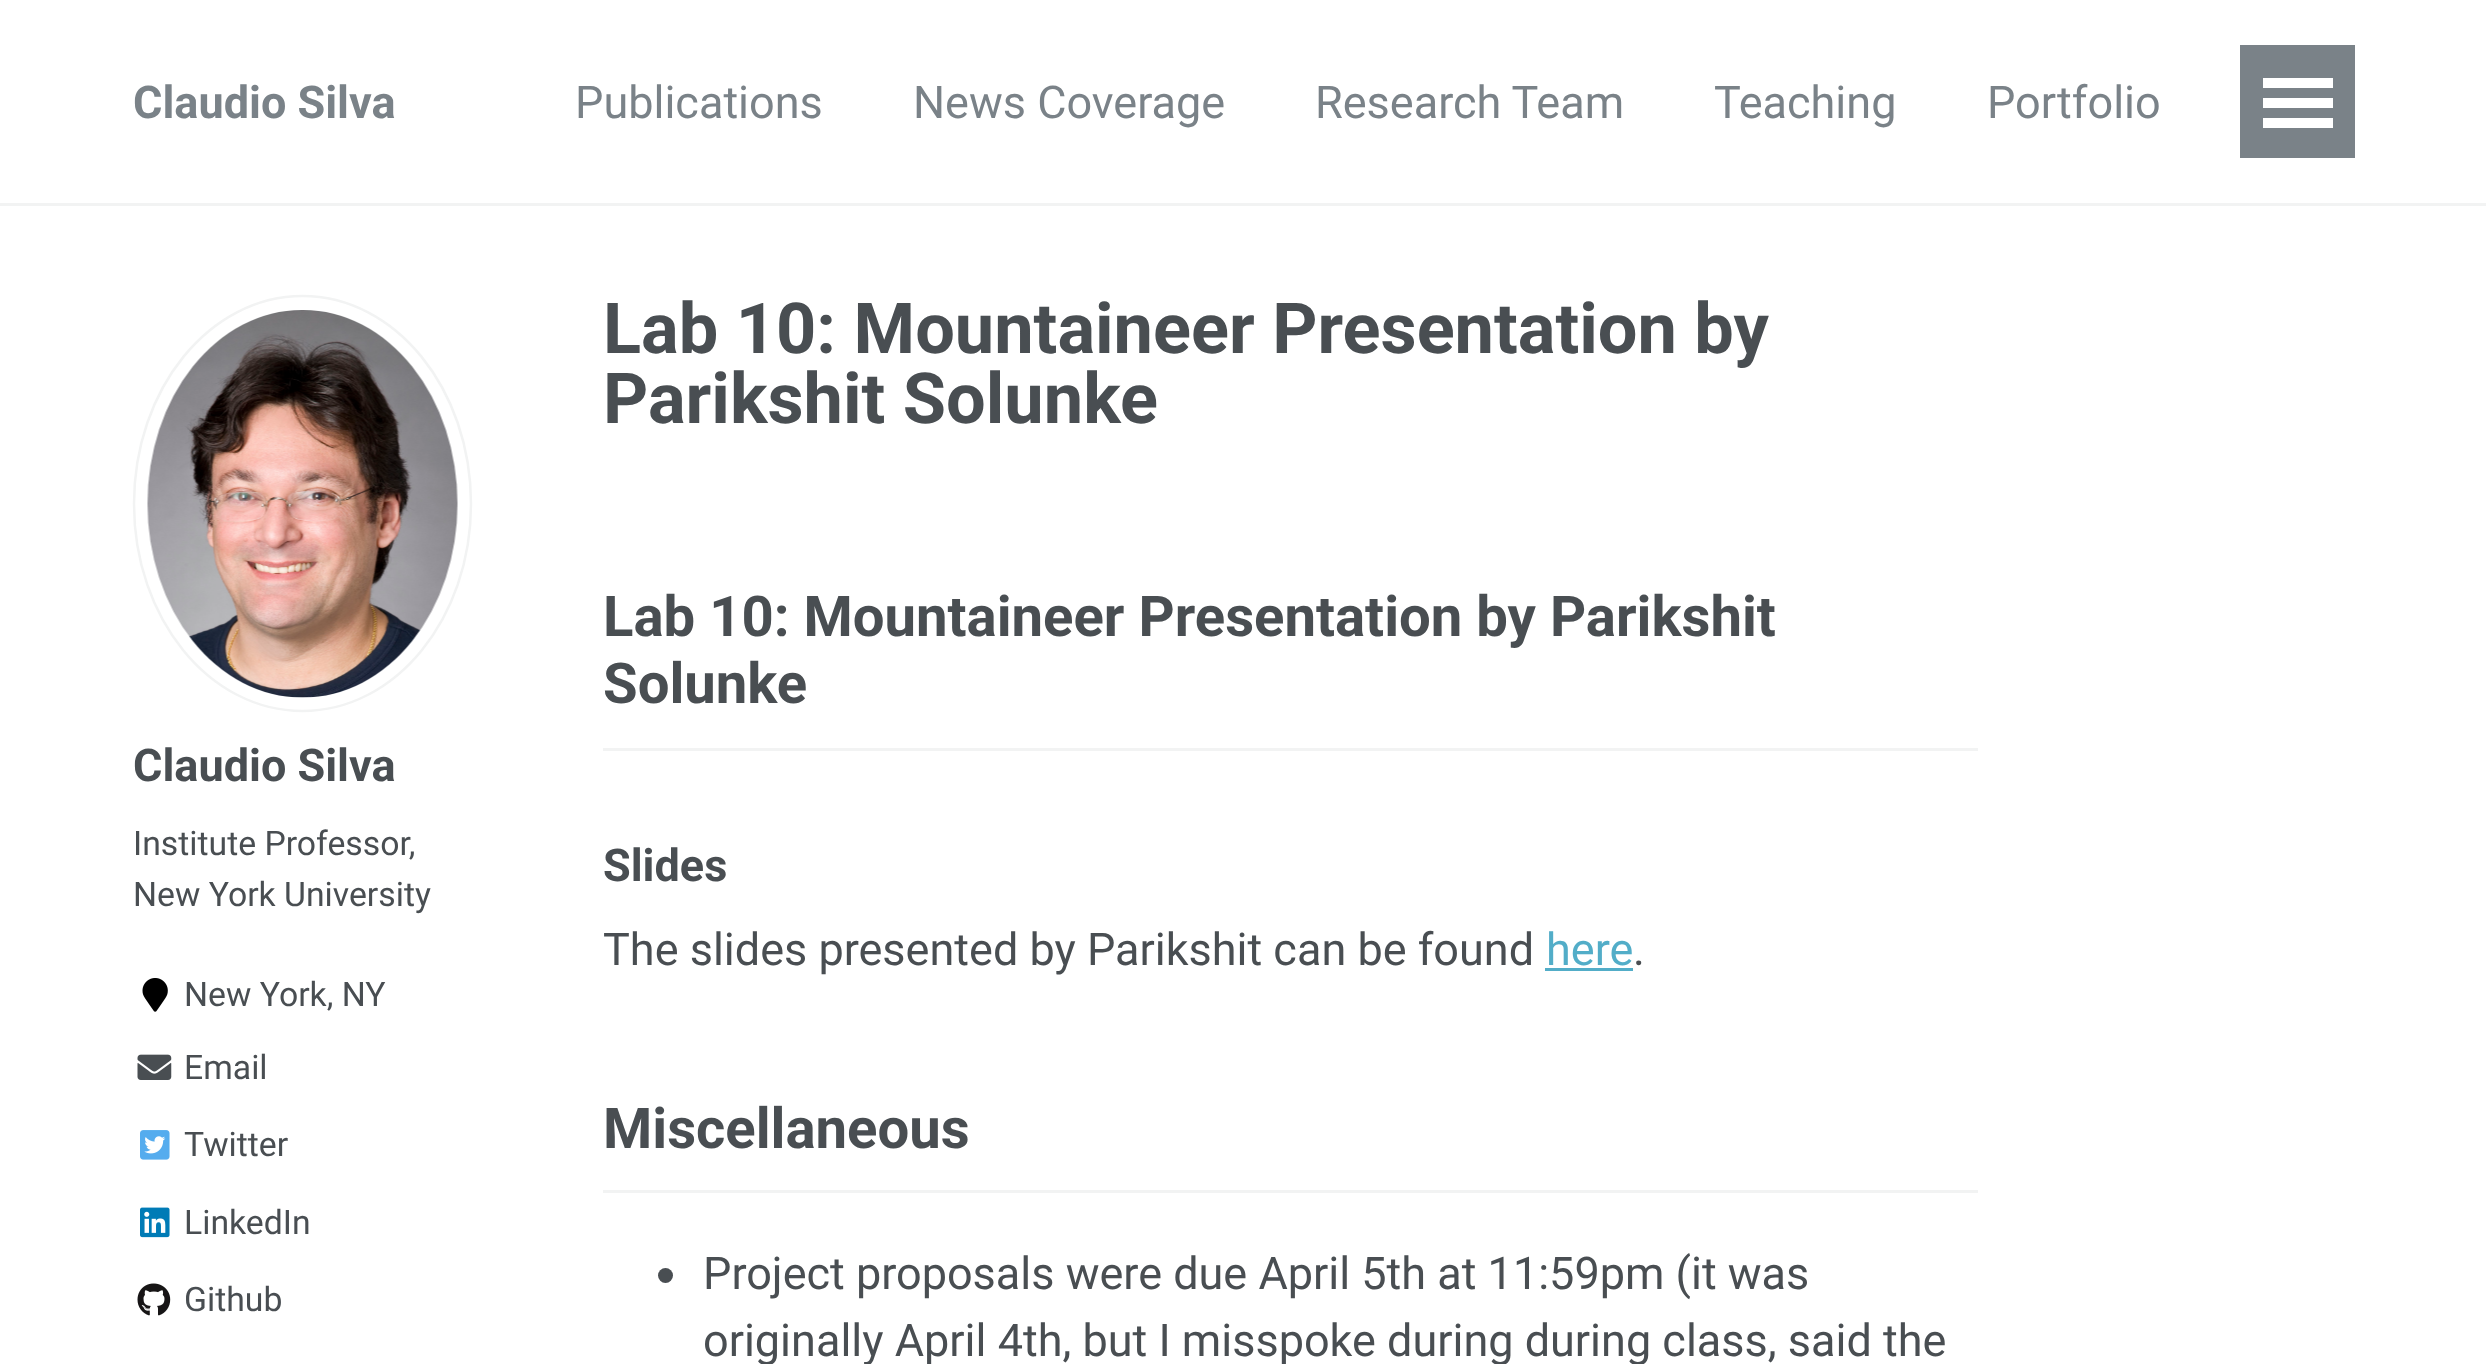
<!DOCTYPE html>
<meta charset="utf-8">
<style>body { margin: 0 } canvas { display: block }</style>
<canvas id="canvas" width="2486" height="1364"></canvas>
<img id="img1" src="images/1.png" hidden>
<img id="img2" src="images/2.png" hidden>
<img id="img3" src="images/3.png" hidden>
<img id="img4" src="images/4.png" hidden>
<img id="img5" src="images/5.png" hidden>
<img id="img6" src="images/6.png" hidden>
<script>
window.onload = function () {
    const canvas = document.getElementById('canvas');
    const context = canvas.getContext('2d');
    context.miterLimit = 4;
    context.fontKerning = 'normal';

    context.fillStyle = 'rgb(255, 255, 255)';
    context.fillRect(0, 0, 2486, 1364);
    context.fillStyle = 'rgb(242, 243, 243)';
    context.fillRect(0, 203, 2486, 3);
    context.fillStyle = 'rgb(122, 130, 136)';
    context.fillRect(2240, 45, 115, 113);
    context.fillStyle = 'rgb(255, 255, 255)';
    context.fillRect(2263, 98, 70, 10);
    context.fillRect(2263, 78, 70, 10);
    context.fillRect(2263, 118, 70, 10);
    context.beginPath();
    context.moveTo(302.5, 296);
    context.bezierCurveTo(395.5, 296, 471, 389, 471, 504);
    context.bezierCurveTo(471, 618.5, 395.5, 711, 302.5, 711);
    context.bezierCurveTo(209.5, 711, 134, 618.5, 134, 504);
    context.bezierCurveTo(134, 389, 209.5, 296, 302.5, 296);
    context.closePath();
    context.strokeStyle = 'rgb(242, 243, 243)';
    context.lineWidth = 2.5;
    context.stroke();
    context.drawImage(document.getElementById('img1'), 147, 310, 311, 388);
    context.drawImage(document.getElementById('img2'), 142, 978, 26, 34);
    context.drawImage(document.getElementById('img3'), 137, 1054, 35, 26);
    context.drawImage(document.getElementById('img4'), 140, 1130, 30, 30);
    context.drawImage(document.getElementById('img5'), 140, 1207, 30, 31);
    context.drawImage(document.getElementById('img6'), 137, 1283, 34, 33);
    context.fillStyle = 'rgb(242, 243, 243)';
    context.fillRect(603, 748, 1375, 3);
    context.fillStyle = 'rgb(82, 173, 200)';
    context.fillRect(1545, 968, 88, 3);
    context.fillStyle = 'rgb(242, 243, 243)';
    context.fillRect(603, 1190, 1375, 3);
    context.fillStyle = 'rgb(73, 78, 82)';
    context.beginPath();
    context.arc(665.5, 1275.5, 7.5, 0, 2 * Math.PI);
    context.fill();
    context.font = 'bold 45px Roboto';
    context.fillStyle = 'rgb(122, 130, 136)';
    context.fillText('Claudio Silva', 133, 118);
    context.font = '45px Roboto';
    context.fillText('Publications', 575, 118);
    context.fillText('News Coverage', 913, 118);
    context.fillText('Research Team', 1315, 118);
    context.fillText('Teaching', 1714, 118);
    context.fillText('Portfolio', 1987, 118);
    context.font = 'bold 45px Roboto';
    context.fillStyle = 'rgb(73, 78, 82)';
    context.fillText('Claudio Silva', 133, 781);
    context.font = '33.75px Roboto';
    context.fillText('Institute Professor,', 133, 855);
    context.fillText('New York University', 133, 906);
    context.fillText('New York, NY', 184, 1006);
    context.fillText('Email', 184, 1079);
    context.fillText('Twitter', 184, 1156);
    context.fillText('LinkedIn', 184, 1234);
    context.fillText('Github', 184, 1311);
    context.font = 'bold 70.3px Roboto';
    context.fillText('Lab 10: Mountaineer Presentation by', 603, 353);
    context.fillText('Parikshit Solunke', 603, 423);
    context.font = 'bold 56.25px Roboto';
    context.fillText('Lab 10: Mountaineer Presentation by Parikshit', 603, 636);
    context.fillText('Solunke', 603, 703);
    context.font = 'bold 45px Roboto';
    context.fillText('Slides', 603, 881);
    context.font = '45px Roboto';
    context.fillText('The slides presented by Parikshit can be found', 603, 965);
    context.fillStyle = 'rgb(82, 173, 200)';
    context.fillText('here', 1546, 965);
    context.fillStyle = 'rgb(73, 78, 82)';
    context.fillText('.', 1633, 965);
    context.font = 'bold 56.25px Roboto';
    context.fillText('Miscellaneous', 603, 1148);
    context.font = '45px Roboto';
    context.fillText('Project proposals were due April 5th at 11:59pm (it was', 703, 1289);
    context.fillText('originally April 4th, but I misspoke during during class, said the', 703, 1356);
};
</script>
